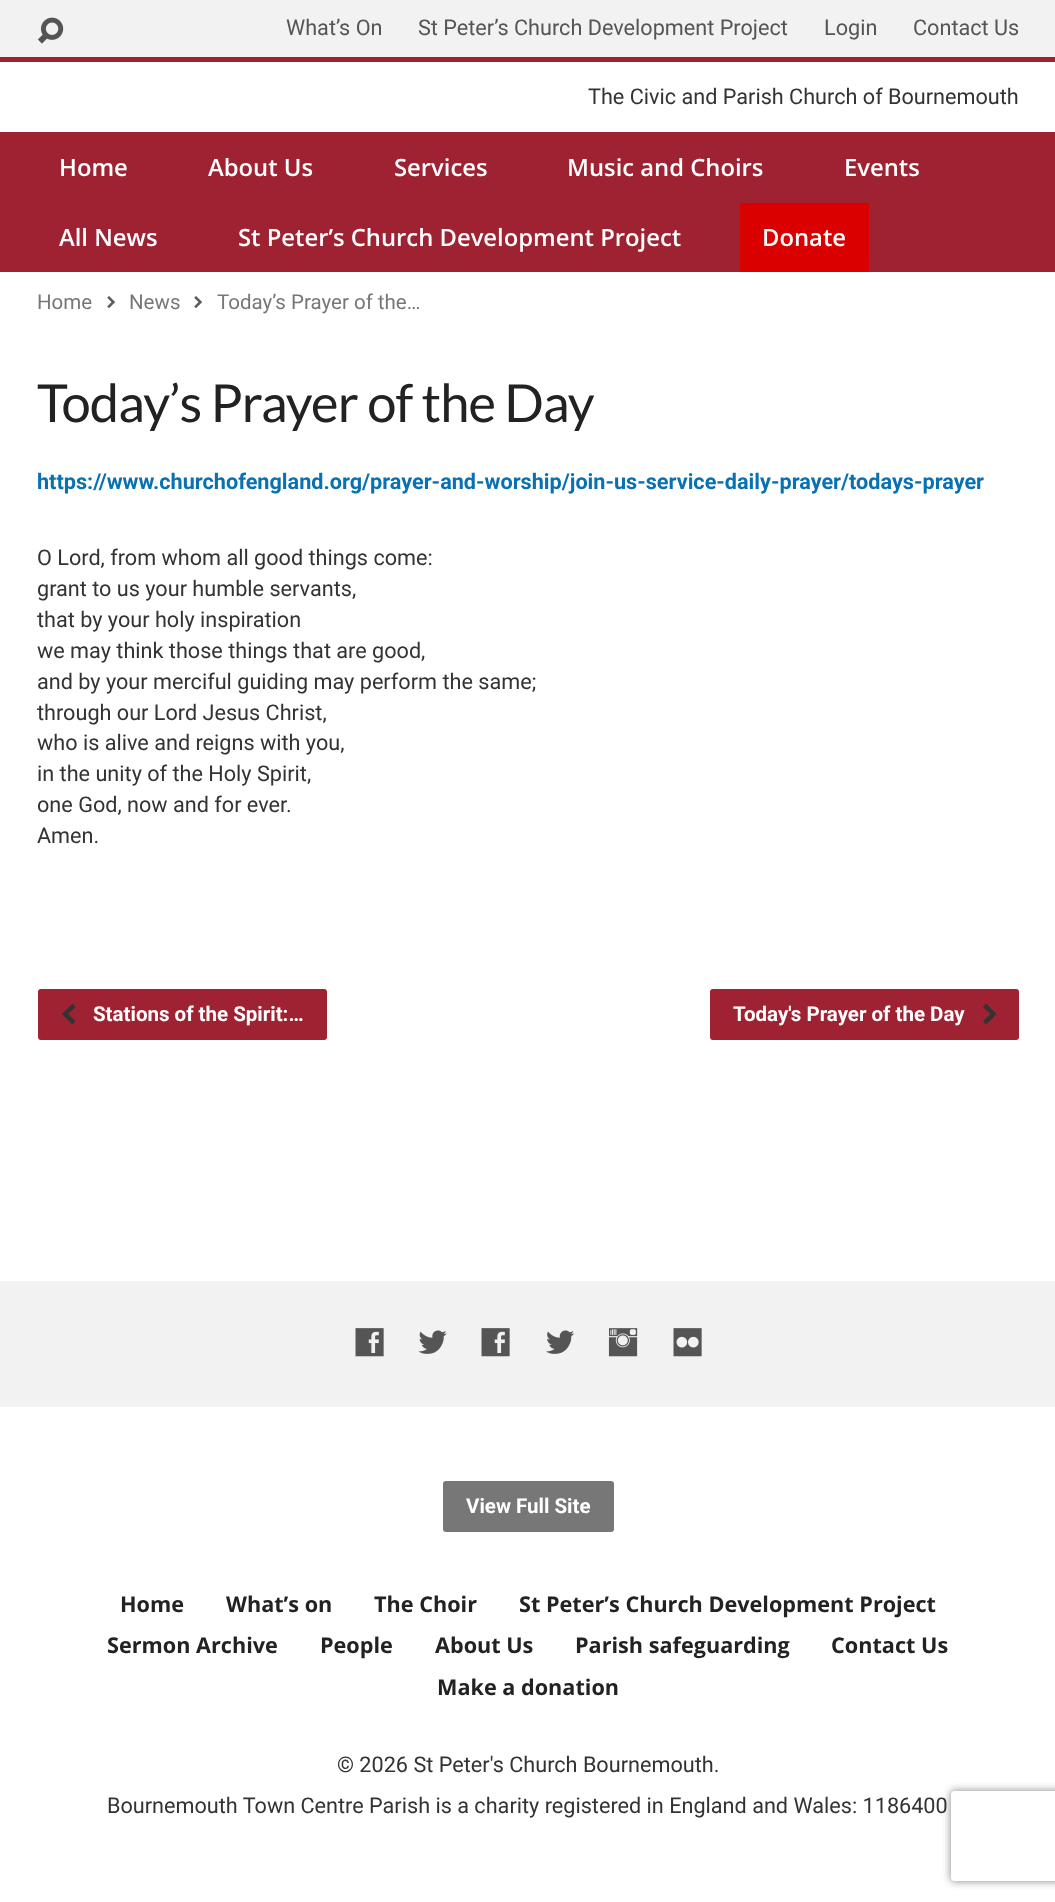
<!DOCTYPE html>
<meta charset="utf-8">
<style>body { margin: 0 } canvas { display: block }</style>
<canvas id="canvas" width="1055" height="1902"></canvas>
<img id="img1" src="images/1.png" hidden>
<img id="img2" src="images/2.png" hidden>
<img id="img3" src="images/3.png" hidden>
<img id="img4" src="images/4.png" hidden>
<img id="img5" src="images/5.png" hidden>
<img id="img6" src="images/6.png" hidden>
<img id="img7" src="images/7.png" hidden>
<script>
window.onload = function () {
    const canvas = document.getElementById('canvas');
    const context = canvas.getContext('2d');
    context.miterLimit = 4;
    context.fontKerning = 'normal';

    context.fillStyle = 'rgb(255, 255, 255)';
    context.fillRect(0, 0, 1055, 1902);
    context.fillStyle = 'rgb(242, 242, 242)';
    context.fillRect(0, 0, 1055, 57);
    context.fillStyle = 'rgb(158, 34, 50)';
    context.fillRect(0, 57, 1055, 5);
    context.drawImage(document.getElementById('img1'), 37, 17, 27, 27);
    context.fillRect(0, 132, 1055, 140);
    context.fillStyle = 'rgb(218, 0, 0)';
    context.beginPath();
    context.roundRect(740, 203, 129, 69, [0, 0, 3, 3]);
    context.fill();
    context.drawImage(document.getElementById('img2'), 107, 296, 9, 13);
    context.drawImage(document.getElementById('img2'), 194, 296, 9, 13);
    context.fillStyle = 'rgb(158, 34, 50)';
    context.beginPath();
    context.roundRect(38, 989, 289, 51, 3);
    context.fill();
    context.fillStyle = 'rgb(51, 51, 51)';
    context.beginPath();
    context.moveTo(62, 1014);
    context.lineTo(72.5, 1024.5);
    context.lineTo(75.5, 1021);
    context.lineTo(68, 1014);
    context.lineTo(75.5, 1007);
    context.lineTo(72.5, 1003.5);
    context.closePath();
    context.fill();
    context.fillStyle = 'rgb(158, 34, 50)';
    context.beginPath();
    context.roundRect(710, 989, 309, 51, 3);
    context.fill();
    context.fillStyle = 'rgb(51, 51, 51)';
    context.beginPath();
    context.moveTo(996.5, 1014);
    context.lineTo(986, 1003.5);
    context.lineTo(983, 1007);
    context.lineTo(990.5, 1014);
    context.lineTo(983, 1021);
    context.lineTo(986, 1024.5);
    context.closePath();
    context.fill();
    context.fillStyle = 'rgb(242, 242, 242)';
    context.fillRect(0, 1281, 1055, 126);
    context.drawImage(document.getElementById('img3'), 355, 1328, 29, 29);
    context.drawImage(document.getElementById('img4'), 418, 1330, 29, 24);
    context.drawImage(document.getElementById('img3'), 481, 1328, 29, 29);
    context.drawImage(document.getElementById('img5'), 546, 1330, 28, 24);
    context.drawImage(document.getElementById('img6'), 608, 1328, 30, 29);
    context.drawImage(document.getElementById('img7'), 673, 1328, 29, 29);
    context.fillStyle = 'rgb(119, 119, 119)';
    context.beginPath();
    context.roundRect(443, 1481, 171, 51, 3);
    context.fill();
    context.save();
    context.beginPath();
    context.moveTo(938, 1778);
    context.lineTo(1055, 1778);
    context.lineTo(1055, 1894);
    context.lineTo(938, 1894);
    context.closePath();
    context.moveTo(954, 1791);
    context.lineTo(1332, 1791);
    context.bezierCurveTo(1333.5, 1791, 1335, 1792.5, 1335, 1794);
    context.lineTo(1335, 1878);
    context.bezierCurveTo(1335, 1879.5, 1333.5, 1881, 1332, 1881);
    context.lineTo(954, 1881);
    context.bezierCurveTo(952.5, 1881, 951, 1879.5, 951, 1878);
    context.lineTo(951, 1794);
    context.bezierCurveTo(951, 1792.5, 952.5, 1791, 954, 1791);
    context.closePath();
    context.clip('evenodd');
    context.fillStyle = 'rgb(128, 128, 128)';
    context.filter = 'blur(4px)';
    context.beginPath();
    context.roundRect(951, 1791, 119, 90, 3);
    context.fill();
    context.filter = 'none';
    context.restore();
    context.font = '21.65px Roboto';
    context.fillStyle = 'rgb(85, 85, 85)';
    context.fillText('What’s On', 286, 35);
    context.fillText('St Peter’s Church Development Project', 418, 35);
    context.fillText('Login', 824, 35);
    context.fillText('Contact Us', 913, 35);
    context.fillStyle = 'rgb(51, 51, 51)';
    context.fillText('The Civic and Parish Church of Bournemouth', 588, 104);
    context.font = '600 23.8px Open Sans';
    context.fillStyle = 'rgb(255, 255, 255)';
    context.fillText('Home', 59, 176);
    context.fillText('About Us', 208, 176);
    context.fillText('Services', 394, 176);
    context.fillText('Music and Choirs', 567, 176);
    context.fillText('Events', 844, 176);
    context.fillText('All News', 59, 246);
    context.fillText('St Peter’s Church Development Project', 238, 246);
    context.fillText('Donate', 762, 246);
    context.font = '20.5px Roboto';
    context.fillStyle = 'rgb(119, 119, 119)';
    context.fillText('Home', 37, 309);
    context.fillText('News', 129, 309);
    context.fillText('Today’s Prayer of the…', 217, 309);
    context.letterSpacing = '-0.9px';
    context.font = '52.5px Lato';
    context.fillStyle = 'rgb(34, 34, 34)';
    context.fillText('Today’s Prayer of the Day', 37, 422);
    context.letterSpacing = '0px';
    context.font = 'bold 21.65px Roboto';
    context.fillStyle = 'rgb(9, 113, 178)';
    context.fillText('https://www.churchofengland.org/prayer-and-worship/join-us-service-daily-prayer/todays-prayer', 37, 489);
    context.font = '21.65px Roboto';
    context.fillStyle = 'rgb(51, 51, 51)';
    context.fillText('O Lord, from whom all good things come:', 37, 565);
    context.fillText('grant to us your humble servants,', 37, 596);
    context.fillText('that by your holy inspiration', 37, 627);
    context.fillText('we may think those things that are good,', 37, 658);
    context.fillText('and by your merciful guiding may perform the same;', 37, 689);
    context.fillText('through our Lord Jesus Christ,', 37, 720);
    context.fillText('who is alive and reigns with you,', 37, 750);
    context.fillText('in the unity of the Holy Spirit,', 37, 781);
    context.fillText('one God, now and for ever.', 37, 812);
    context.fillText('Amen.', 37, 843);
    context.font = 'bold 20.5px Roboto';
    context.fillStyle = 'rgb(255, 255, 255)';
    context.fillText('Stations of the Spirit:…', 93, 1021);
    context.fillText('Today\'s Prayer of the Day', 733, 1021);
    context.fillText('View Full Site', 466, 1513);
    context.font = 'bold 21.65px Open Sans';
    context.fillStyle = 'rgb(34, 34, 34)';
    context.fillText('Home', 120, 1612);
    context.fillText('What’s on', 226, 1612);
    context.fillText('The Choir', 374, 1612);
    context.fillText('St Peter’s Church Development Project', 519, 1612);
    context.fillText('Sermon Archive', 107, 1653);
    context.fillText('People', 320, 1653);
    context.fillText('About Us', 435, 1653);
    context.fillText('Parish safeguarding', 575, 1653);
    context.fillText('Contact Us', 831, 1653);
    context.fillText('Make a donation', 437, 1695);
    context.font = '21.65px Roboto';
    context.fillStyle = 'rgb(51, 51, 51)';
    context.fillText('© 2026 St Peter\'s Church Bournemouth.', 337, 1772);
    context.fillText('Bournemouth Town Centre Parish is a charity registered in England and Wales: 1186400', 107, 1813);
};
</script>
